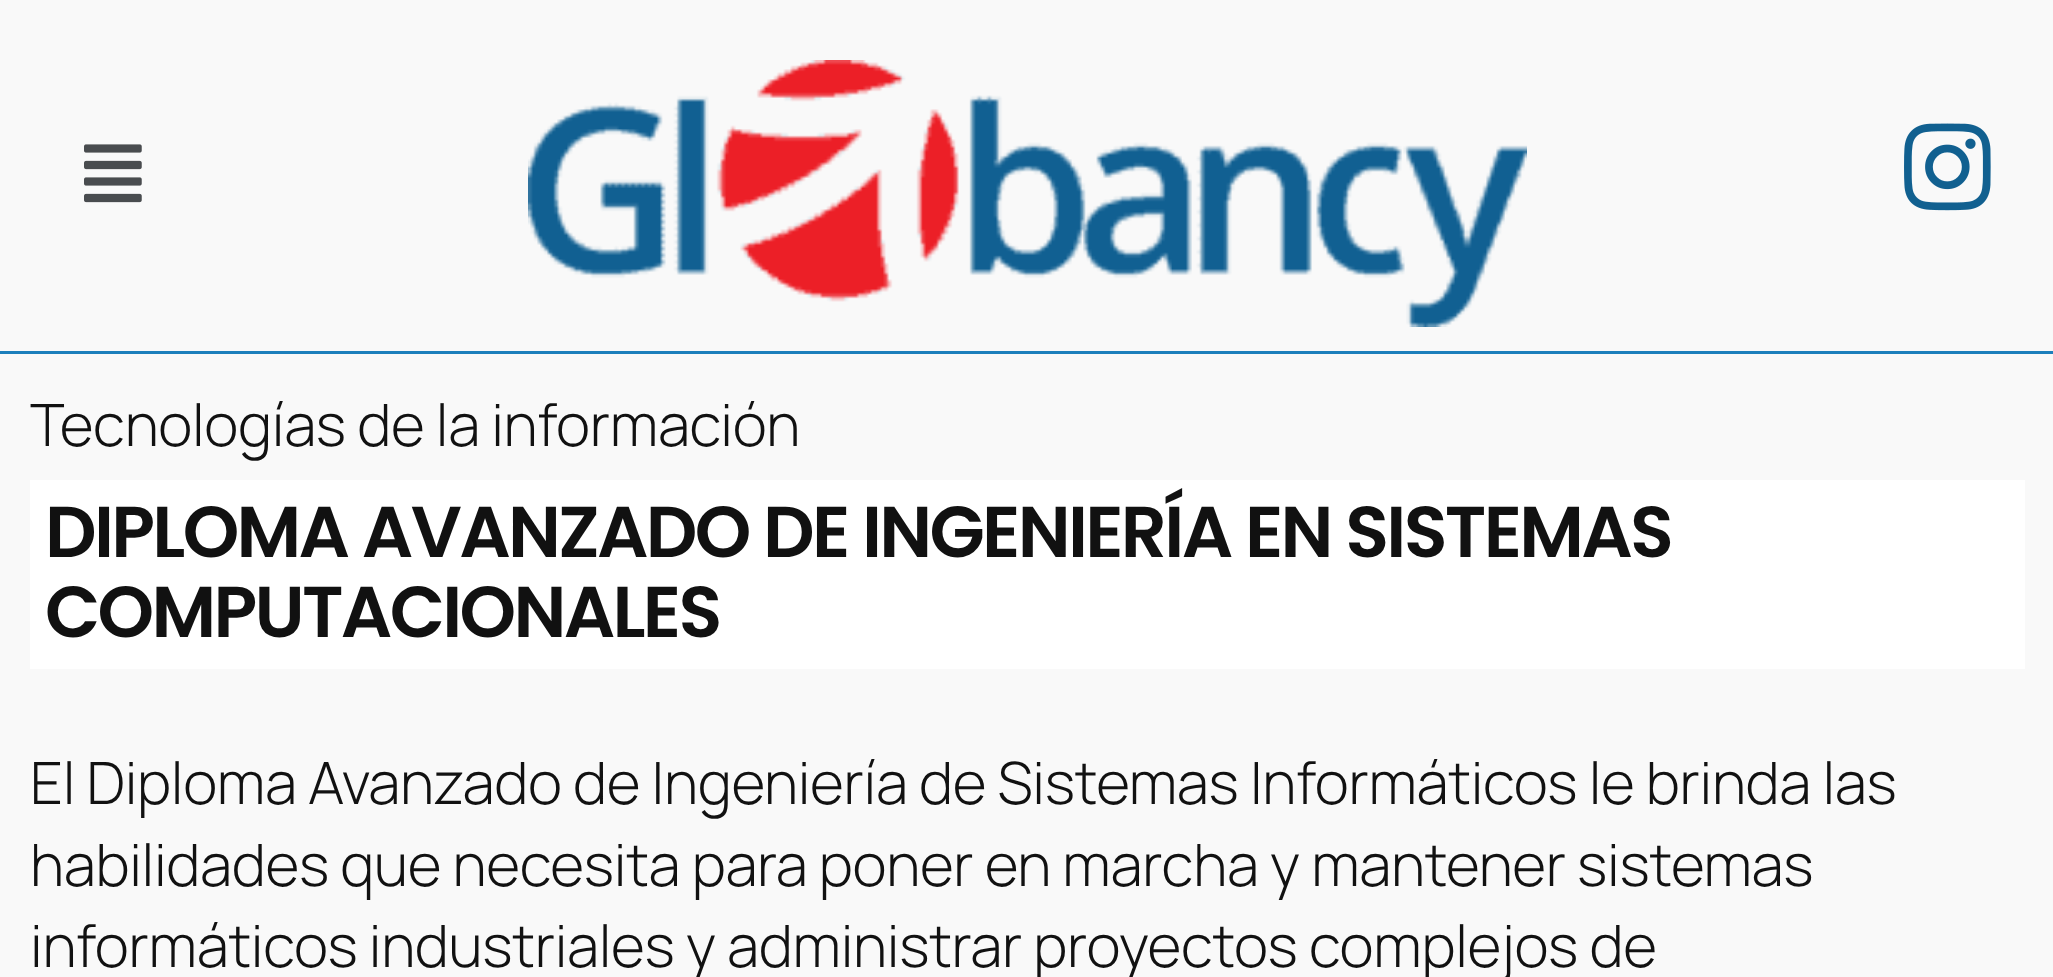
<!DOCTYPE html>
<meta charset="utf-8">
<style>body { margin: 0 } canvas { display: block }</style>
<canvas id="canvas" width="2053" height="977"></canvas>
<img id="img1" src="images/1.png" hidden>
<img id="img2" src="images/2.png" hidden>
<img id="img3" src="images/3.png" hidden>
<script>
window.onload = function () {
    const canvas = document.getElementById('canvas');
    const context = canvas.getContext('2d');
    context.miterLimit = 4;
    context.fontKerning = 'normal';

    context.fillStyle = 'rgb(249, 249, 249)';
    context.fillRect(0, 0, 2053, 977);
    context.fillStyle = 'rgb(28, 127, 188)';
    context.fillRect(0, 351, 2053, 3);
    context.drawImage(document.getElementById('img1'), 84, 144, 58, 59);
    context.drawImage(document.getElementById('img2'), 528, 60, 999, 267);
    context.drawImage(document.getElementById('img3'), 1904, 123, 87, 88);
    context.fillStyle = 'rgb(255, 255, 255)';
    context.fillRect(30, 480, 1995, 189);
    context.letterSpacing = '-0.3px';
    context.font = '300 58.3px Manrope';
    context.fillStyle = 'rgb(17, 17, 17)';
    context.fillText('Tecnologías de la información', 30, 446);
    context.letterSpacing = '-2.7px';
    context.font = '600 72px Poppins';
    context.fillText('DIPLOMA AVANZADO DE INGENIERÍA EN SISTEMAS', 45, 557);
    context.fillText('COMPUTACIONALES', 45, 637);
    context.letterSpacing = '-0.3px';
    context.font = '300 58.3px Manrope';
    context.fillText('El Diploma Avanzado de Ingeniería de Sistemas Informáticos le brinda las', 30, 804);
    context.fillText('habilidades que necesita para poner en marcha y mantener sistemas', 30, 886);
    context.fillText('informáticos industriales y administrar proyectos complejos de', 30, 967);
};
</script>
